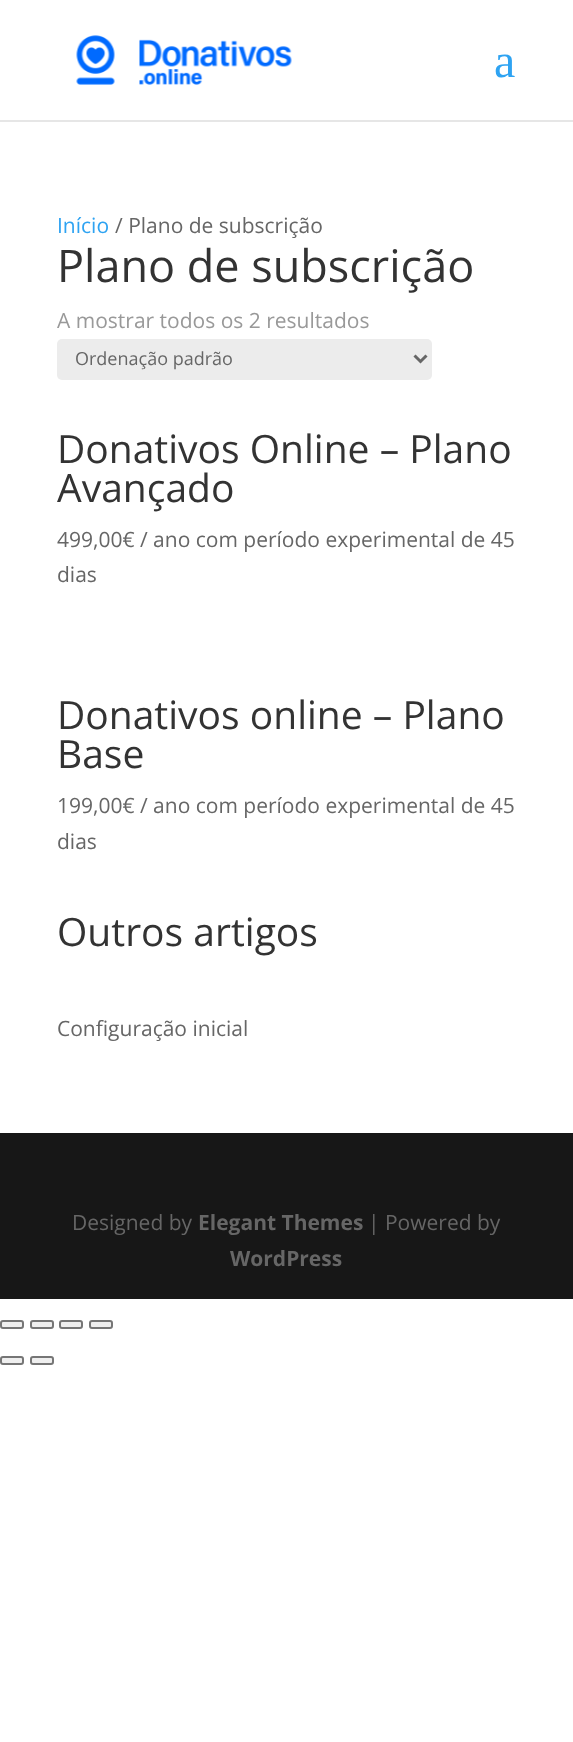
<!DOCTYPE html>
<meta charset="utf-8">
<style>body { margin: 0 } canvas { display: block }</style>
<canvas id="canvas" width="573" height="1742"></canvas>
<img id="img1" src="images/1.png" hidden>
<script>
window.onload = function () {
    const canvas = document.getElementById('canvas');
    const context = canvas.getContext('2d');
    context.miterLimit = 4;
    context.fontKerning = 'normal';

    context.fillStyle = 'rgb(255, 255, 255)';
    context.fillRect(0, 0, 573, 1742);
    context.fillStyle = 'rgb(230, 230, 230)';
    context.fillRect(0, 120, 573, 2);
    context.drawImage(document.getElementById('img1'), 76, 35, 216, 50);
    context.fillStyle = 'rgb(236, 236, 236)';
    context.beginPath();
    context.roundRect(57, 339, 375, 41, 5);
    context.fill();
    context.beginPath();
    context.moveTo(414.5, 355.5);
    context.lineTo(420.5, 361.5);
    context.lineTo(426.5, 355.5);
    context.strokeStyle = 'rgb(102, 102, 102)';
    context.lineWidth = 3;
    context.stroke();
    context.fillStyle = 'rgb(23, 23, 23)';
    context.fillRect(0, 1133, 573, 166);
    context.fillStyle = 'rgb(239, 239, 239)';
    context.beginPath();
    context.roundRect(1, 1321, 22, 7, 2);
    context.fill();
    context.strokeStyle = 'rgb(118, 118, 118)';
    context.lineWidth = 2;
    context.stroke();
    context.beginPath();
    context.roundRect(31, 1321, 22, 7, 2);
    context.fill();
    context.stroke();
    context.beginPath();
    context.roundRect(60, 1321, 22, 7, 2);
    context.fill();
    context.stroke();
    context.beginPath();
    context.roundRect(90, 1321, 22, 7, 2);
    context.fill();
    context.stroke();
    context.beginPath();
    context.roundRect(1, 1357, 22, 7, 2);
    context.fill();
    context.stroke();
    context.beginPath();
    context.roundRect(31, 1357, 22, 7, 2);
    context.fill();
    context.stroke();
    context.font = '48px Liberation Serif';
    context.fillStyle = 'rgb(46, 163, 242)';
    context.fillText('a', 494, 77);
    context.font = '21px Open Sans';
    context.fillText('Início', 57, 233);
    context.fillStyle = 'rgb(102, 102, 102)';
    context.fillText('/ Plano de subscrição', 115, 233);
    context.font = '45px Open Sans';
    context.fillStyle = 'rgb(51, 51, 51)';
    context.fillText('Plano de subscrição', 57, 282);
    context.font = '21px Open Sans';
    context.fillStyle = 'rgb(153, 153, 153)';
    context.fillText('A mostrar todos os 2 resultados', 57, 328);
    context.font = '18px Open Sans';
    context.fillStyle = 'rgb(102, 102, 102)';
    context.fillText('Ordenação padrão', 75, 365);
    context.font = '39px Open Sans';
    context.fillStyle = 'rgb(51, 51, 51)';
    context.fillText('Donativos Online – Plano', 57, 463);
    context.fillText('Avançado', 57, 502);
    context.font = '21px Open Sans';
    context.fillStyle = 'rgb(102, 102, 102)';
    context.fillText('499,00€ / ano com período experimental de 45', 57, 547);
    context.fillText('dias', 57, 582);
    context.font = '39px Open Sans';
    context.fillStyle = 'rgb(51, 51, 51)';
    context.fillText('Donativos online – Plano', 57, 729);
    context.fillText('Base', 57, 768);
    context.font = '21px Open Sans';
    context.fillStyle = 'rgb(102, 102, 102)';
    context.fillText('199,00€ / ano com período experimental de 45', 57, 813);
    context.fillText('dias', 57, 849);
    context.font = '39px Open Sans';
    context.fillStyle = 'rgb(51, 51, 51)';
    context.fillText('Outros artigos', 57, 946);
    context.font = '21px Open Sans';
    context.fillStyle = 'rgb(102, 102, 102)';
    context.fillText('Configuração inicial', 57, 1036);
    context.fillText('Designed by', 72, 1230);
    context.font = 'bold 21px Open Sans';
    context.fillText('Elegant Themes', 198, 1230);
    context.font = '21px Open Sans';
    context.fillText('| Powered by', 368, 1230);
    context.font = 'bold 21px Open Sans';
    context.fillText('WordPress', 230, 1266);
};
</script>
